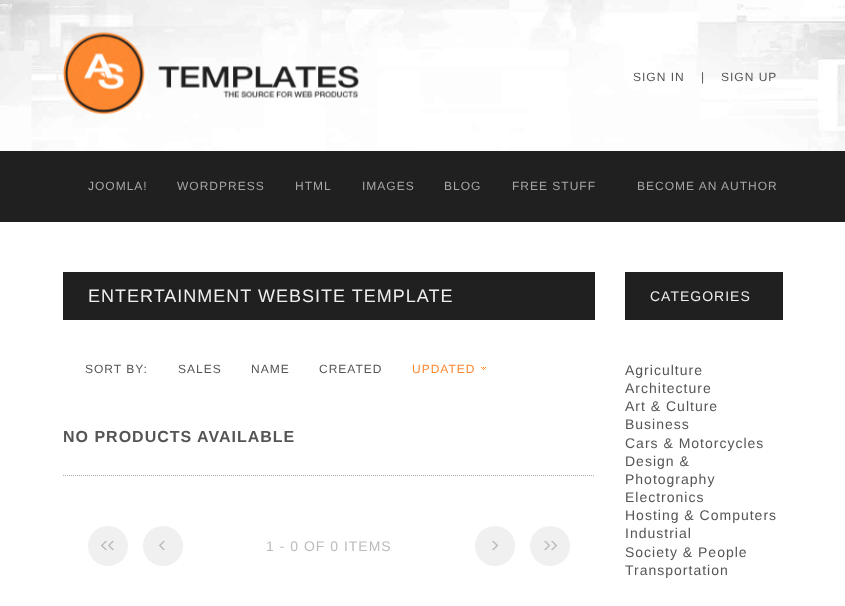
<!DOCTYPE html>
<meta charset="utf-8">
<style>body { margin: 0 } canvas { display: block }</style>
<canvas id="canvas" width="845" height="606"></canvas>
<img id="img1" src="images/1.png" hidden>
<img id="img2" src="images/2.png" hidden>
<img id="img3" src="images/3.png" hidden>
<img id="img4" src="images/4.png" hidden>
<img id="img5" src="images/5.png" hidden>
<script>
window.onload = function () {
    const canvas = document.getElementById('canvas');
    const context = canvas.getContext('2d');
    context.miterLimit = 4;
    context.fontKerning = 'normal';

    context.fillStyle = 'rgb(255, 255, 255)';
    context.fillRect(0, 0, 845, 606);
    context.drawImage(document.getElementById('img1'), 0, 0, 845, 151);
    context.drawImage(document.getElementById('img2'), 63, 32, 296, 83);
    context.fillStyle = 'rgb(32, 32, 32)';
    context.fillRect(0, 151, 845, 71);
    context.fillRect(63, 272, 532, 48);
    context.drawImage(document.getElementById('img3'), 481, 367, 5, 3);
    context.beginPath();
    context.moveTo(63, 475.5);
    context.lineTo(595, 475.5);
    context.strokeStyle = 'rgb(170, 170, 170)';
    context.setLineDash([1, 1]);
    context.stroke();
    context.fillStyle = 'rgb(240, 240, 240)';
    context.beginPath();
    context.arc(108, 546, 20, 0, 2 * Math.PI);
    context.fill();
    context.drawImage(document.getElementById('img4'), 101, 541, 6, 9);
    context.drawImage(document.getElementById('img4'), 108, 541, 6, 9);
    context.beginPath();
    context.arc(163, 546, 20, 0, 2 * Math.PI);
    context.fill();
    context.drawImage(document.getElementById('img4'), 159, 541, 6, 9);
    context.beginPath();
    context.arc(495, 546, 20, 0, 2 * Math.PI);
    context.fill();
    context.drawImage(document.getElementById('img5'), 492, 541, 7, 9);
    context.beginPath();
    context.arc(550, 546, 20, 0, 2 * Math.PI);
    context.fill();
    context.drawImage(document.getElementById('img5'), 544, 541, 7, 9);
    context.drawImage(document.getElementById('img5'), 551, 541, 7, 9);
    context.fillStyle = 'rgb(32, 32, 32)';
    context.fillRect(625, 272, 158, 48);
    context.letterSpacing = '1px';
    context.font = '12px Liberation Sans';
    context.fillStyle = 'rgb(85, 85, 85)';
    context.fillText('SIGN IN', 633, 81);
    context.fillText('|', 701, 81);
    context.fillText('SIGN UP', 721, 81);
    context.fillStyle = 'rgb(166, 166, 166)';
    context.fillText('JOOMLA!', 88, 190);
    context.fillText('WORDPRESS', 177, 190);
    context.fillText('HTML', 295, 190);
    context.fillText('IMAGES', 362, 190);
    context.fillText('BLOG', 444, 190);
    context.fillText('FREE STUFF', 512, 190);
    context.fillText('BECОME AN AUTHOR', 637, 190);
    context.font = '18px Liberation Sans';
    context.fillStyle = 'rgb(238, 238, 238)';
    context.fillText('ENTERTAINMENT WEBSITE TEMPLATE', 88, 302);
    context.font = '12px Liberation Sans';
    context.fillStyle = 'rgb(85, 85, 85)';
    context.fillText('SORT BY:', 85, 373);
    context.fillText('SALES', 178, 373);
    context.fillText('NAME', 251, 373);
    context.fillText('CREATED', 319, 373);
    context.fillStyle = 'rgb(255, 136, 49)';
    context.fillText('UPDATED', 412, 373);
    context.font = 'bold 16px Liberation Sans';
    context.fillStyle = 'rgb(85, 85, 85)';
    context.fillText('NO PRODUCTS AVAILABLE', 63, 442);
    context.font = '14px Liberation Sans';
    context.fillStyle = 'rgb(187, 187, 187)';
    context.fillText('1 - 0 OF 0 ITEMS', 266, 551);
    context.fillStyle = 'rgb(238, 238, 238)';
    context.fillText('CATEGORIES', 650, 301);
    context.fillStyle = 'rgb(85, 85, 85)';
    context.fillText('Agriculture', 625, 375);
    context.fillText('Architecture', 625, 393);
    context.fillText('Art & Culture', 625, 411);
    context.fillText('Business', 625, 429);
    context.fillText('Cars & Motorcycles', 625, 448);
    context.fillText('Design &', 625, 466);
    context.fillText('Photography', 625, 484);
    context.fillText('Electronics', 625, 502);
    context.fillText('Hosting & Computers', 625, 520);
    context.fillText('Industrial', 625, 538);
    context.fillText('Society & People', 625, 557);
    context.fillText('Transportation', 625, 575);
};
</script>
